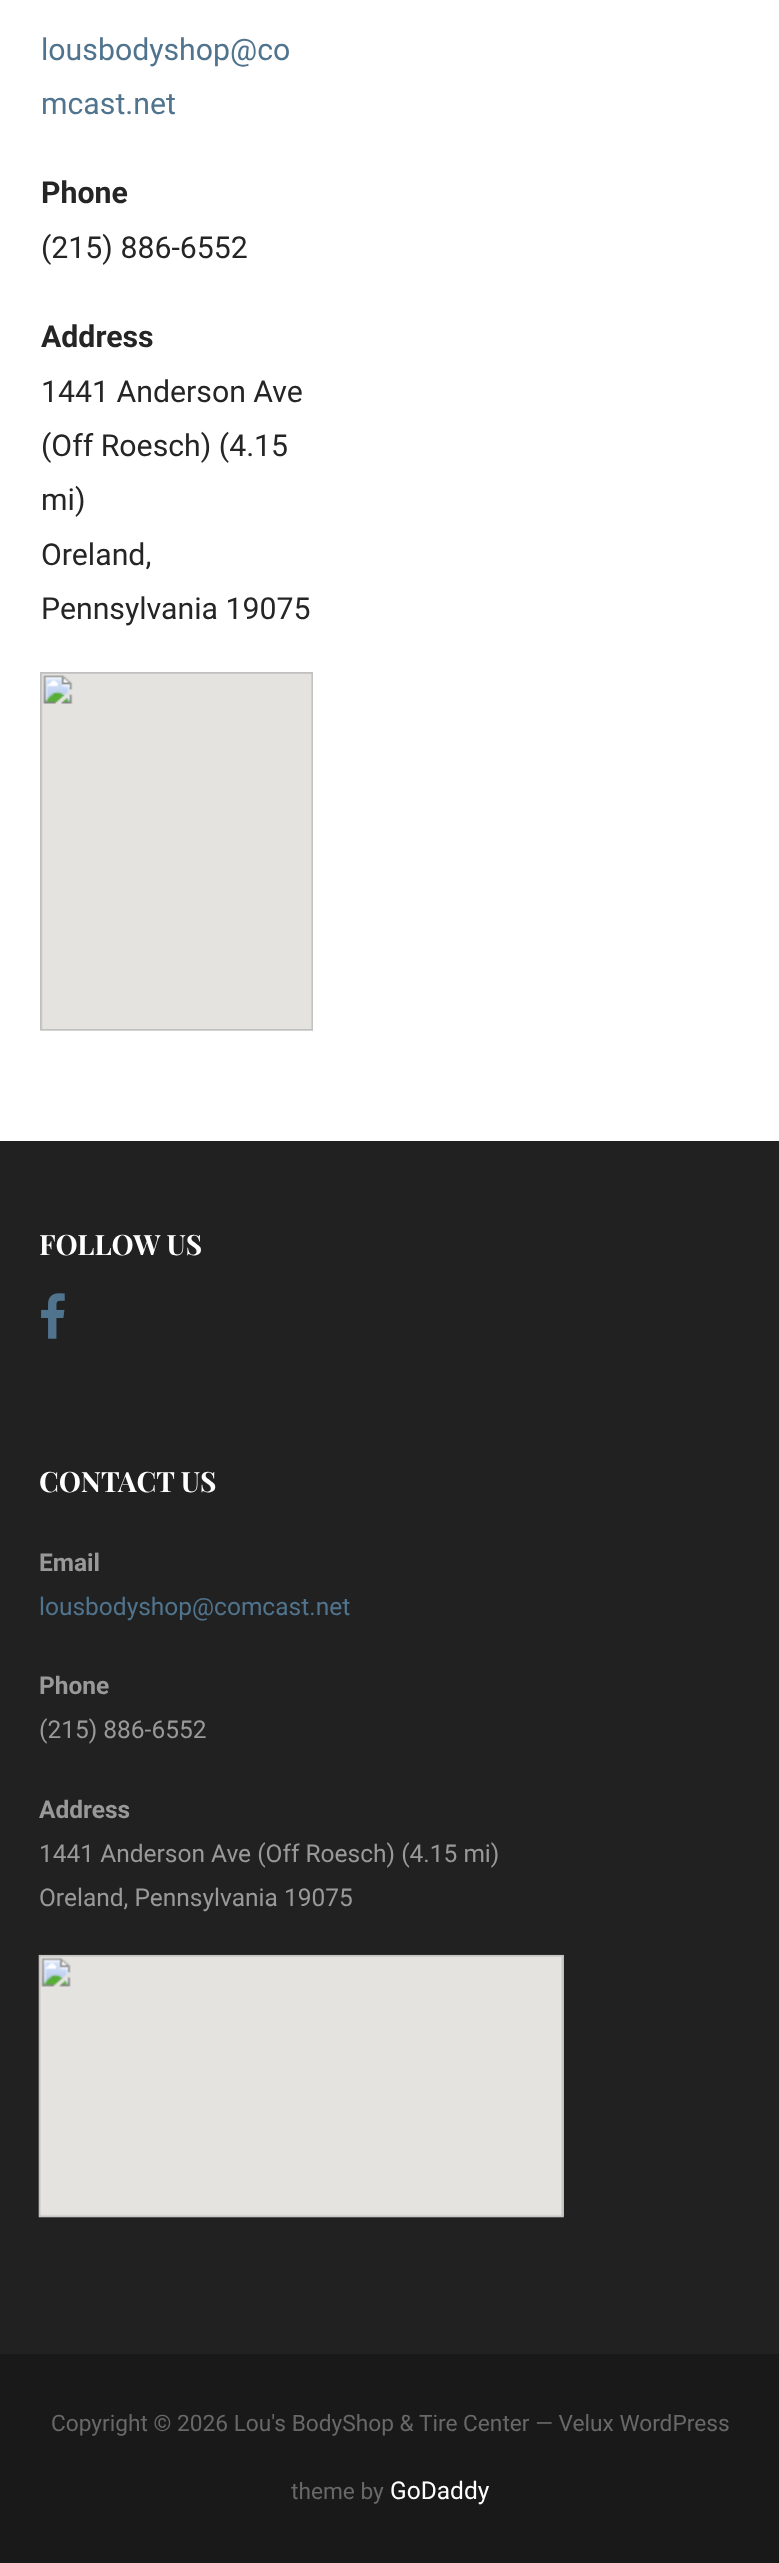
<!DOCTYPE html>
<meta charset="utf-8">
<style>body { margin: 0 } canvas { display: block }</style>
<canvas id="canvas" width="779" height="2563"></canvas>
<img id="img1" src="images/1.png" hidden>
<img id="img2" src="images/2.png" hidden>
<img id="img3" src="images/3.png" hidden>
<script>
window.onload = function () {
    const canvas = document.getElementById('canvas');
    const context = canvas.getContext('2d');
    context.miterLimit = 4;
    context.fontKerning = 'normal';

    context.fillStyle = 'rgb(255, 255, 255)';
    context.fillRect(0, 0, 779, 2563);
    context.drawImage(document.getElementById('img1'), 40, 672, 273, 359);
    context.fillStyle = 'rgb(33, 33, 33)';
    context.fillRect(0, 1141, 779, 1213);
    context.drawImage(document.getElementById('img2'), 41, 1293, 24, 46);
    context.drawImage(document.getElementById('img3'), 38, 1954, 526, 264);
    context.fillStyle = 'rgb(25, 25, 25)';
    context.fillRect(0, 2354, 779, 209);
    context.font = '30.25px Roboto';
    context.fillStyle = 'rgb(81, 116, 142)';
    context.fillText('lousbodyshop@co', 41, 60);
    context.fillText('mcast.net', 41, 114);
    context.font = 'bold 30.25px Roboto';
    context.fillStyle = 'rgb(37, 37, 37)';
    context.fillText('Phone', 41, 203);
    context.font = '30.25px Roboto';
    context.fillText('(215) 886-6552', 41, 258);
    context.font = 'bold 30.25px Roboto';
    context.fillText('Address', 41, 347);
    context.font = '30.25px Roboto';
    context.fillText('1441 Anderson Ave', 41, 402);
    context.fillText('(Off Roesch) (4.15', 41, 456);
    context.fillText('mi)', 41, 510);
    context.fillText('Oreland,', 41, 565);
    context.fillText('Pennsylvania 19075', 41, 619);
    context.font = 'bold 28px Playfair Display';
    context.fillStyle = 'rgb(255, 255, 255)';
    context.fillText('FOLLOW US', 39, 1255);
    context.fillText('CONTACT US', 39, 1492);
    context.font = 'bold 24.5px Roboto';
    context.fillStyle = 'rgb(153, 153, 153)';
    context.fillText('Email', 39, 1571);
    context.font = '24.5px Roboto';
    context.fillStyle = 'rgb(81, 116, 142)';
    context.fillText('lousbodyshop@comcast.net', 39, 1615);
    context.font = 'bold 24.5px Roboto';
    context.fillStyle = 'rgb(153, 153, 153)';
    context.fillText('Phone', 39, 1694);
    context.font = '24.5px Roboto';
    context.fillText('(215) 886-6552', 39, 1738);
    context.font = 'bold 24.5px Roboto';
    context.fillText('Address', 39, 1818);
    context.font = '24.5px Roboto';
    context.fillText('1441 Anderson Ave (Off Roesch) (4.15 mi)', 39, 1862);
    context.fillText('Oreland, Pennsylvania 19075', 39, 1906);
    context.font = '22.7px Roboto';
    context.fillStyle = 'rgb(104, 104, 104)';
    context.fillText('Copyright © 2026 Lou\'s BodyShop & Tire Center — Velux WordPress', 51, 2431);
    context.fillText('theme by', 291, 2499);
    context.font = '24.5px Roboto';
    context.fillStyle = 'rgb(255, 255, 255)';
    context.fillText('GoDaddy', 390, 2499);
};
</script>
